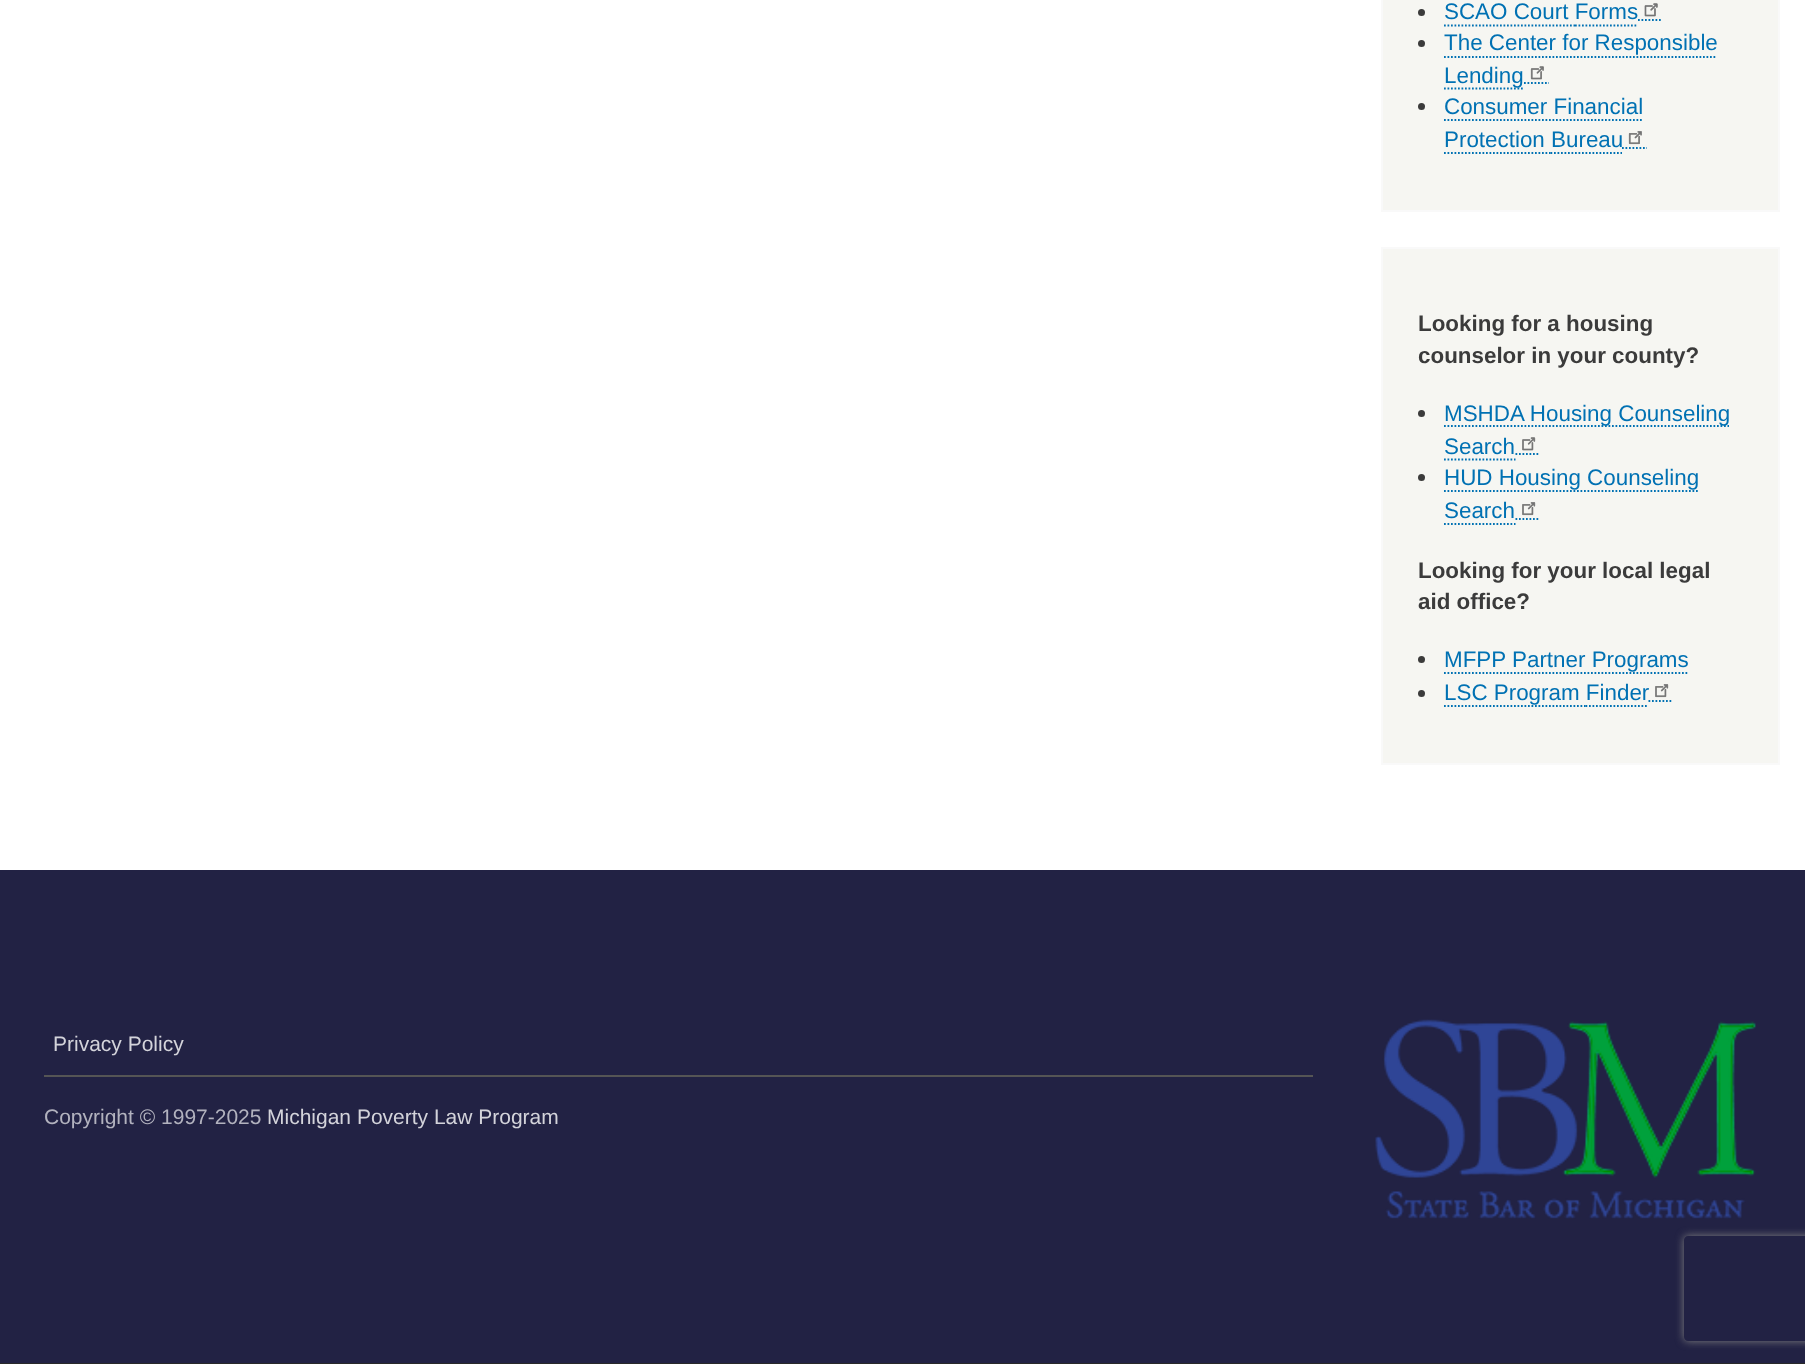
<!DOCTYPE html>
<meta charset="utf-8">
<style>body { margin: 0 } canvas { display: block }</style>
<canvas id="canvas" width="1805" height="1364"></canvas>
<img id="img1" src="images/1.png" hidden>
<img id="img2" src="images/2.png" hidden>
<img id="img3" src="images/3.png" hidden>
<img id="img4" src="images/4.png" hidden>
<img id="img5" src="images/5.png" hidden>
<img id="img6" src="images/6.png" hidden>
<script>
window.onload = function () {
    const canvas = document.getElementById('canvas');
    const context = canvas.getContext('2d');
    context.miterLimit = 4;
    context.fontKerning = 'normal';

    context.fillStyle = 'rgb(41, 41, 41)';
    context.fillRect(0, 0, 1805, 1364);
    context.fillStyle = 'rgb(255, 255, 255)';
    context.fillRect(0, 0, 1805, 870);
    context.fillStyle = 'rgb(246, 246, 242)';
    context.beginPath();
    context.rect(1382, -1, 397, 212);
    context.fill();
    context.strokeStyle = 'rgb(249, 249, 249)';
    context.lineWidth = 2;
    context.stroke();
    context.fillStyle = 'rgb(59, 59, 59)';
    context.beginPath();
    context.arc(1421.5, 12.5, 3.5, 0, 2 * Math.PI);
    context.fill();
    context.beginPath();
    context.moveTo(1444, 25.5);
    context.lineTo(1575, 25.5);
    context.strokeStyle = 'rgb(0, 113, 179)';
    context.lineWidth = 1.8;
    context.setLineDash([1.75, 1.75]);
    context.stroke();
    context.beginPath();
    context.moveTo(1575, 25.5);
    context.lineTo(1638, 25.5);
    context.stroke();
    context.beginPath();
    context.moveTo(1638, 20);
    context.lineTo(1662.5, 20);
    context.stroke();
    context.drawImage(document.getElementById('img1'), 1644, 3, 14, 14);
    context.beginPath();
    context.arc(1421.5, 43.5, 3.5, 0, 2 * Math.PI);
    context.fill();
    context.beginPath();
    context.moveTo(1444, 57);
    context.lineTo(1717, 57);
    context.stroke();
    context.beginPath();
    context.moveTo(1444, 88.5);
    context.lineTo(1524, 88.5);
    context.stroke();
    context.beginPath();
    context.moveTo(1524, 83);
    context.lineTo(1549, 83);
    context.stroke();
    context.drawImage(document.getElementById('img2'), 1530, 66, 14, 14);
    context.beginPath();
    context.arc(1421.5, 106.5, 3.5, 0, 2 * Math.PI);
    context.fill();
    context.beginPath();
    context.moveTo(1444, 120);
    context.lineTo(1643, 120);
    context.stroke();
    context.beginPath();
    context.moveTo(1444, 153);
    context.lineTo(1550.5, 153);
    context.stroke();
    context.beginPath();
    context.moveTo(1550.5, 153);
    context.lineTo(1622, 153);
    context.stroke();
    context.beginPath();
    context.moveTo(1622, 148);
    context.lineTo(1647, 148);
    context.stroke();
    context.drawImage(document.getElementById('img3'), 1628, 131, 14, 14);
    context.fillStyle = 'rgb(246, 246, 242)';
    context.beginPath();
    context.rect(1382, 248, 397, 516);
    context.fill();
    context.strokeStyle = 'rgb(249, 249, 249)';
    context.lineWidth = 2;
    context.setLineDash([]);
    context.stroke();
    context.fillStyle = 'rgb(59, 59, 59)';
    context.beginPath();
    context.arc(1421.5, 413.5, 3.5, 0, 2 * Math.PI);
    context.fill();
    context.beginPath();
    context.moveTo(1444, 426);
    context.lineTo(1729, 426);
    context.strokeStyle = 'rgb(0, 113, 179)';
    context.lineWidth = 1.8;
    context.setLineDash([1.75, 1.75]);
    context.stroke();
    context.beginPath();
    context.moveTo(1444, 459.5);
    context.lineTo(1515.5, 459.5);
    context.stroke();
    context.beginPath();
    context.moveTo(1515.5, 454);
    context.lineTo(1540, 454);
    context.stroke();
    context.drawImage(document.getElementById('img4'), 1522, 437, 14, 14);
    context.beginPath();
    context.arc(1421.5, 477.5, 3.5, 0, 2 * Math.PI);
    context.fill();
    context.beginPath();
    context.moveTo(1444, 491);
    context.lineTo(1699, 491);
    context.stroke();
    context.beginPath();
    context.moveTo(1444, 524);
    context.lineTo(1515.5, 524);
    context.stroke();
    context.beginPath();
    context.moveTo(1515.5, 519);
    context.lineTo(1540, 519);
    context.stroke();
    context.drawImage(document.getElementById('img5'), 1522, 502, 14, 14);
    context.beginPath();
    context.arc(1421.5, 659.5, 3.5, 0, 2 * Math.PI);
    context.fill();
    context.beginPath();
    context.moveTo(1444, 673);
    context.lineTo(1689, 673);
    context.stroke();
    context.beginPath();
    context.arc(1421.5, 693.5, 3.5, 0, 2 * Math.PI);
    context.fill();
    context.beginPath();
    context.moveTo(1444, 706);
    context.lineTo(1585.5, 706);
    context.stroke();
    context.beginPath();
    context.moveTo(1585.5, 706);
    context.lineTo(1648.5, 706);
    context.stroke();
    context.beginPath();
    context.moveTo(1648.5, 701);
    context.lineTo(1673, 701);
    context.stroke();
    context.drawImage(document.getElementById('img5'), 1655, 684, 14, 14);
    context.fillStyle = 'rgb(34, 34, 68)';
    context.fillRect(0, 870, 1805, 493);
    context.fillStyle = 'rgb(85, 85, 85)';
    context.fillRect(44, 1075, 1269, 2);
    context.drawImage(document.getElementById('img6'), 1375, 1019, 381, 200);
    context.save();
    context.beginPath();
    context.moveTo(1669, 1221);
    context.lineTo(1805, 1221);
    context.lineTo(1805, 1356);
    context.lineTo(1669, 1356);
    context.closePath();
    context.moveTo(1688, 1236);
    context.lineTo(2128, 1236);
    context.bezierCurveTo(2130, 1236, 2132, 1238, 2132, 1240);
    context.lineTo(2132, 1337);
    context.bezierCurveTo(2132, 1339, 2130, 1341, 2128, 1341);
    context.lineTo(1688, 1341);
    context.bezierCurveTo(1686, 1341, 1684, 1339, 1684, 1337);
    context.lineTo(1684, 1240);
    context.bezierCurveTo(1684, 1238, 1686, 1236, 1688, 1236);
    context.closePath();
    context.clip('evenodd');
    context.fillStyle = 'rgb(128, 128, 128)';
    context.filter = 'blur(4.5px)';
    context.beginPath();
    context.roundRect(1684, 1236, 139, 105, 4);
    context.fill();
    context.filter = 'none';
    context.restore();
    context.font = '22.4px Liberation Sans';
    context.fillStyle = 'rgb(0, 113, 179)';
    context.fillText('SCAO Court Forms', 1444, 19);
    context.fillText('The Center for Responsible', 1444, 50);
    context.fillText('Lending', 1444, 83);
    context.fillText('Consumer Financial', 1444, 114);
    context.fillText('Protection Bureau', 1444, 147);
    context.font = 'bold 22.4px Liberation Sans';
    context.fillStyle = 'rgb(59, 59, 59)';
    context.fillText('Looking for a housing', 1418, 331);
    context.fillText('counselor in your county?', 1418, 363);
    context.font = '22.4px Liberation Sans';
    context.fillStyle = 'rgb(0, 113, 179)';
    context.fillText('MSHDA Housing Counseling', 1444, 421);
    context.fillText('Search', 1444, 454);
    context.fillText('HUD Housing Counseling', 1444, 485);
    context.fillText('Search', 1444, 518);
    context.font = 'bold 22.4px Liberation Sans';
    context.fillStyle = 'rgb(59, 59, 59)';
    context.fillText('Looking for your local legal', 1418, 578);
    context.fillText('aid office?', 1418, 609);
    context.font = '22.4px Liberation Sans';
    context.fillStyle = 'rgb(0, 113, 179)';
    context.fillText('MFPP Partner Programs', 1444, 667);
    context.fillText('LSC Program Finder', 1444, 700);
    context.font = '21px Liberation Sans';
    context.fillStyle = 'rgb(211, 211, 218)';
    context.fillText('Privacy Policy', 53, 1051);
    context.fillStyle = 'rgb(178, 178, 190)';
    context.fillText('Copyright © 1997-2025', 44, 1124);
    context.fillStyle = 'rgb(211, 211, 218)';
    context.fillText('Michigan Poverty Law Program', 267, 1124);
};
</script>
